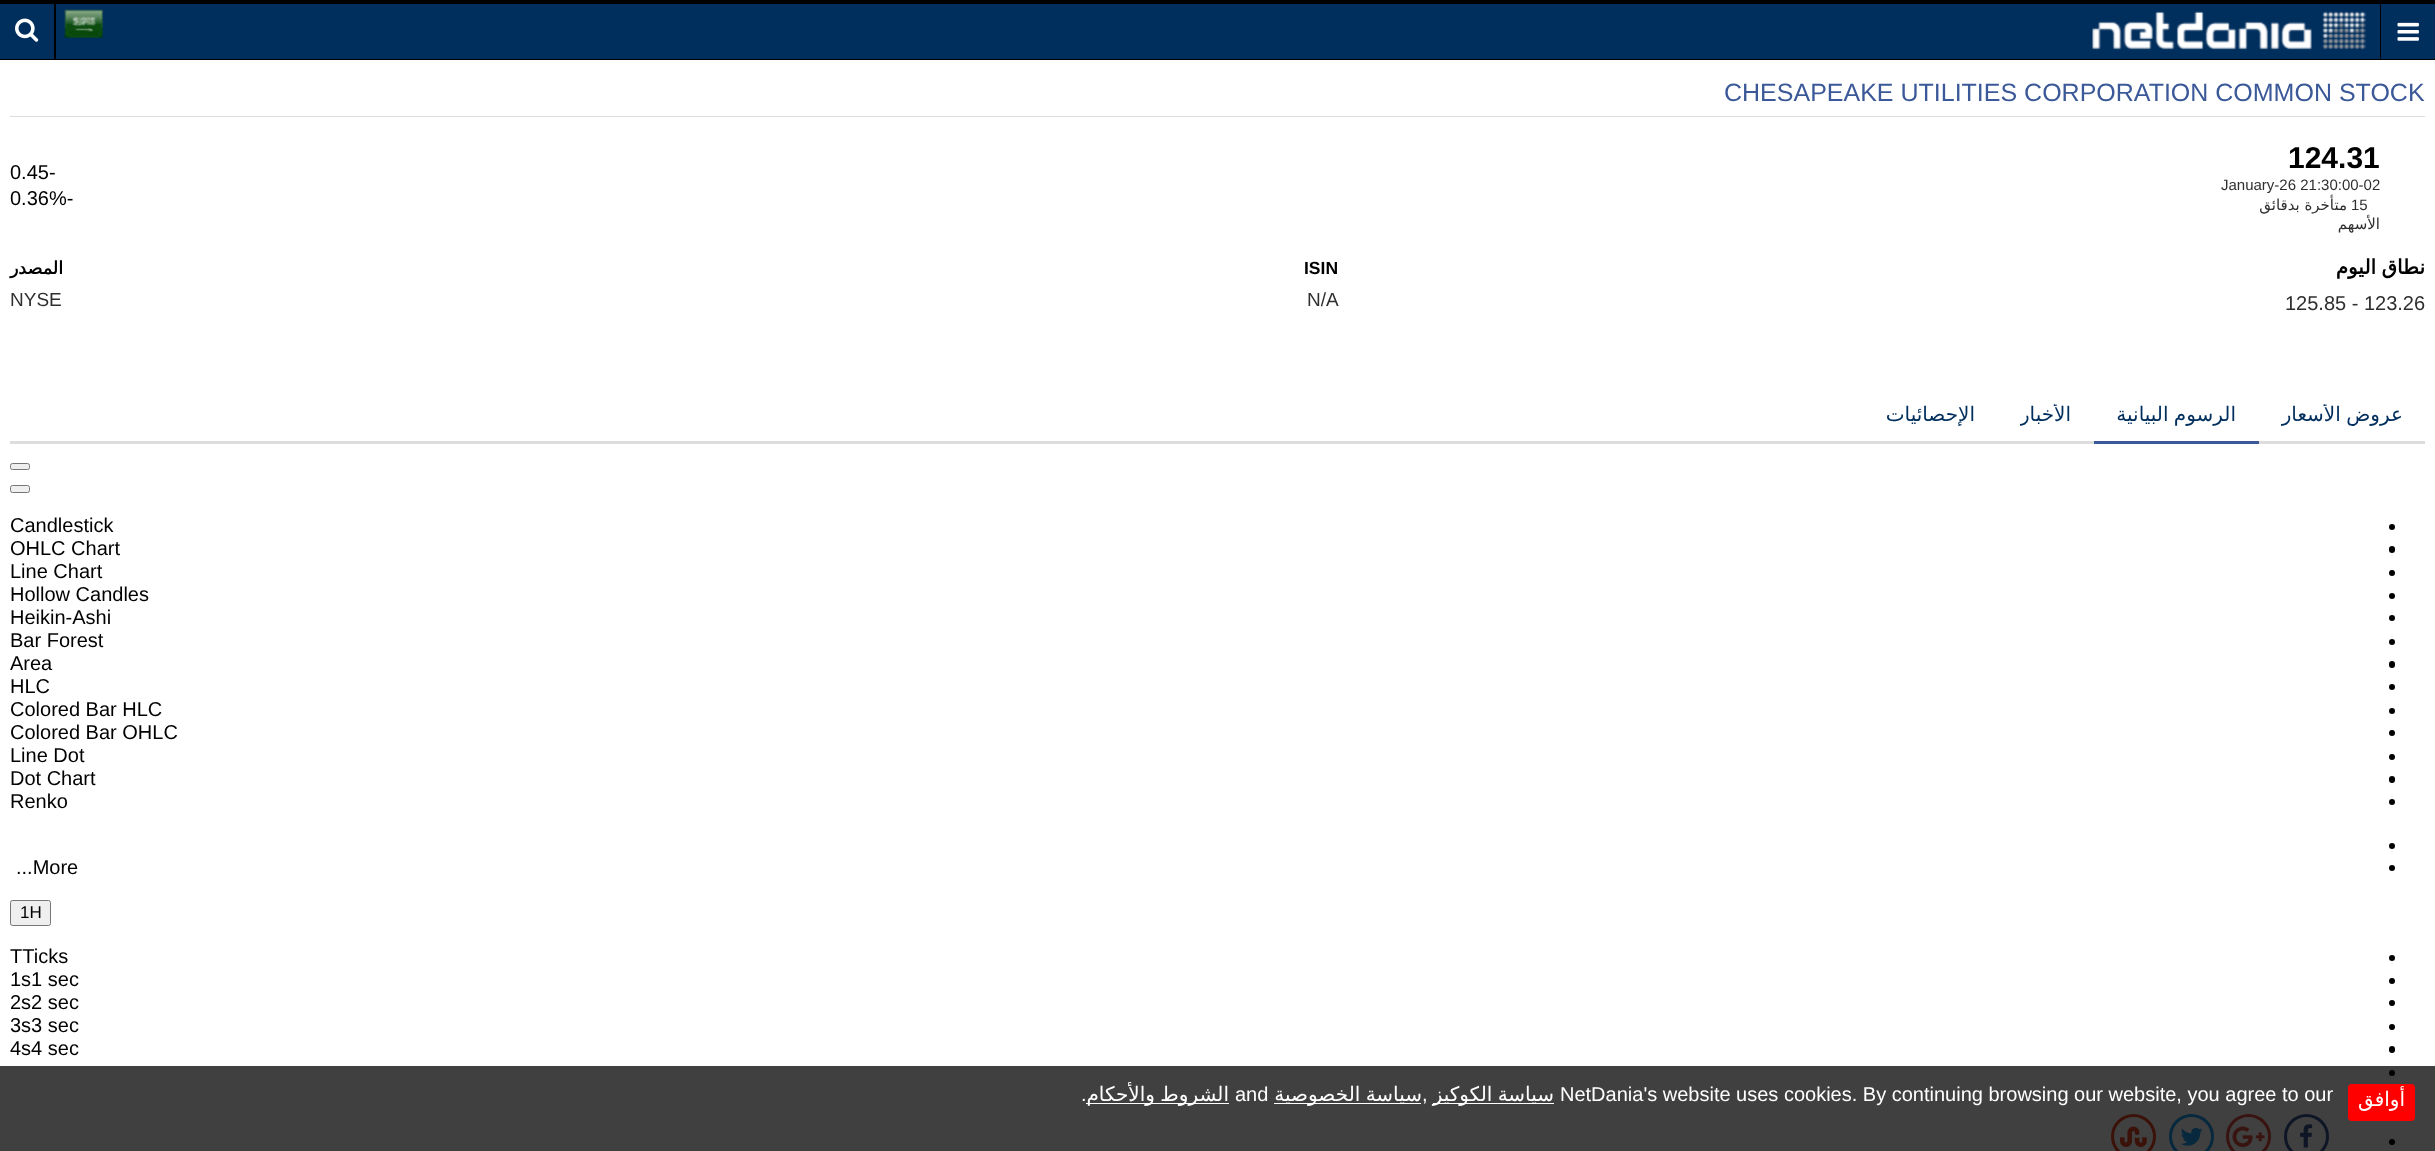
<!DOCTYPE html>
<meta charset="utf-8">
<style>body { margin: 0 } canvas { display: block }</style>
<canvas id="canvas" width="2435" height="1151"></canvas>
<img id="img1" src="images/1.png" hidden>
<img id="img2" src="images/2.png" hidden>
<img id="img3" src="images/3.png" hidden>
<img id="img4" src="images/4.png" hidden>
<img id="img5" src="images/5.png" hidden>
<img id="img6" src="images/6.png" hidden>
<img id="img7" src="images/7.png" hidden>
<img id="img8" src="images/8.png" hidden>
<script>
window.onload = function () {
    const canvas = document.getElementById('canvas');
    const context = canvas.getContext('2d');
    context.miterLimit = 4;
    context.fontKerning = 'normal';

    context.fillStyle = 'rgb(255, 255, 255)';
    context.fillRect(0, 0, 2435, 1151);
    context.fillStyle = 'rgb(0, 46, 93)';
    context.fillRect(0, 4, 2435, 55);
    context.fillStyle = 'rgb(0, 0, 0)';
    context.fillRect(0, 0, 2435, 4);
    context.fillRect(0, 59, 2435, 1);
    context.drawImage(document.getElementById('img1'), 15, 18, 24, 24);
    context.fillRect(54, 4, 2, 55);
    context.drawImage(document.getElementById('img2'), 64, 9, 40, 29);
    context.drawImage(document.getElementById('img3'), 2092, 11, 274, 39);
    context.fillRect(2380, 4, 1, 55);
    context.drawImage(document.getElementById('img4'), 2397, 22, 22, 19);
    context.fillStyle = 'rgb(221, 221, 221)';
    context.fillRect(10, 116, 2415, 1);
    context.fillRect(10, 441, 2415, 3);
    context.fillStyle = 'rgb(59, 89, 152)';
    context.fillRect(2094, 441, 165, 3);
    context.fillStyle = 'rgb(239, 239, 239)';
    context.beginPath();
    context.roundRect(10.5, 463.5, 19, 6, 2);
    context.fill();
    context.strokeStyle = 'rgb(118, 118, 118)';
    context.stroke();
    context.beginPath();
    context.roundRect(10.5, 485.5, 19, 7, 2);
    context.fill();
    context.stroke();
    context.fillStyle = 'rgb(0, 0, 0)';
    context.beginPath();
    context.arc(2392, 527, 3, 0, 2 * Math.PI);
    context.fill();
    context.beginPath();
    context.roundRect(2389, 546, 6, 7, 3);
    context.fill();
    context.beginPath();
    context.arc(2392, 573, 3, 0, 2 * Math.PI);
    context.fill();
    context.beginPath();
    context.arc(2392, 596, 3, 0, 2 * Math.PI);
    context.fill();
    context.beginPath();
    context.arc(2392, 618, 3, 0, 2 * Math.PI);
    context.fill();
    context.beginPath();
    context.arc(2392, 642, 3, 0, 2 * Math.PI);
    context.fill();
    context.beginPath();
    context.roundRect(2389, 661, 6, 7, 3);
    context.fill();
    context.beginPath();
    context.arc(2392, 687, 3, 0, 2 * Math.PI);
    context.fill();
    context.beginPath();
    context.arc(2392, 711, 3, 0, 2 * Math.PI);
    context.fill();
    context.beginPath();
    context.arc(2392, 733, 3, 0, 2 * Math.PI);
    context.fill();
    context.beginPath();
    context.arc(2392, 757, 3, 0, 2 * Math.PI);
    context.fill();
    context.beginPath();
    context.roundRect(2389, 776, 6, 7, 3);
    context.fill();
    context.beginPath();
    context.arc(2392, 802, 3, 0, 2 * Math.PI);
    context.fill();
    context.beginPath();
    context.arc(2392, 846, 3, 0, 2 * Math.PI);
    context.fill();
    context.beginPath();
    context.arc(2392, 868, 3, 0, 2 * Math.PI);
    context.fill();
    context.fillStyle = 'rgb(239, 239, 239)';
    context.beginPath();
    context.roundRect(10.5, 900.5, 40, 25, 2);
    context.fill();
    context.stroke();
    context.fillStyle = 'rgb(0, 0, 0)';
    context.beginPath();
    context.arc(2392, 958, 3, 0, 2 * Math.PI);
    context.fill();
    context.beginPath();
    context.arc(2392, 981, 3, 0, 2 * Math.PI);
    context.fill();
    context.beginPath();
    context.arc(2392, 1003, 3, 0, 2 * Math.PI);
    context.fill();
    context.beginPath();
    context.arc(2392, 1027, 3, 0, 2 * Math.PI);
    context.fill();
    context.beginPath();
    context.roundRect(2389, 1046, 6, 7, 3);
    context.fill();
    context.beginPath();
    context.arc(2392, 1073, 3, 0, 2 * Math.PI);
    context.fill();
    context.beginPath();
    context.arc(2392, 1142, 3, 0, 2 * Math.PI);
    context.fill();
    context.beginPath();
    context.arc(2133.5, 1136.5, 21, 0, 2 * Math.PI);
    context.strokeStyle = 'rgb(235, 73, 36)';
    context.lineWidth = 3;
    context.stroke();
    context.drawImage(document.getElementById('img5'), 2120, 1126, 27, 21);
    context.beginPath();
    context.arc(2191.5, 1136.5, 21, 0, 2 * Math.PI);
    context.strokeStyle = 'rgb(29, 161, 243)';
    context.stroke();
    context.drawImage(document.getElementById('img6'), 2180, 1127, 23, 19);
    context.beginPath();
    context.arc(2248.5, 1136.5, 21, 0, 2 * Math.PI);
    context.strokeStyle = 'rgb(222, 81, 69)';
    context.stroke();
    context.drawImage(document.getElementById('img7'), 2232, 1126, 33, 21);
    context.beginPath();
    context.arc(2306.5, 1136.5, 21, 0, 2 * Math.PI);
    context.strokeStyle = 'rgb(59, 89, 152)';
    context.stroke();
    context.drawImage(document.getElementById('img8'), 2300, 1124, 13, 24);
    context.fillStyle = 'rgba(0, 0, 0, 0.75)';
    context.fillRect(0, 1066, 2435, 85);
    context.fillStyle = 'rgb(255, 255, 255)';
    context.fillRect(1086, 1103, 143, 1);
    context.fillRect(1274, 1103, 147, 1);
    context.fillRect(1433, 1103, 121, 1);
    context.fillStyle = 'rgb(255, 0, 0)';
    context.beginPath();
    context.roundRect(2348, 1084, 67, 37, 4);
    context.fill();
    context.font = '25px Liberation Sans';
    context.fillStyle = 'rgb(59, 89, 152)';
    context.fillText('CHESAPEAKE UTILITIES CORPORATION COMMON STOCK', 1724, 101);
    context.font = '20px Liberation Sans';
    context.fillStyle = 'rgb(0, 0, 0)';
    context.fillText('0.45-', 10, 179);
    context.fillText('0.36%-', 10, 205);
    context.font = 'bold 30px Liberation Sans';
    context.fillText('124.31', 2288, 168);
    context.font = '15px Liberation Sans';
    context.fillStyle = 'rgb(47, 47, 47)';
    context.fillText('January-26 21:30:00-02', 2221, 190);
    context.direction = 'rtl';
    context.font = '15px DejaVu Sans';
    context.fillText('متأخرة بدقائق', 2347, 210);
    context.direction = 'ltr';
    context.font = '15px Liberation Sans';
    context.fillText('15', 2351, 210);
    context.direction = 'rtl';
    context.font = '15px DejaVu Sans';
    context.fillText('الأسهم', 2380, 229);
    context.font = 'bold 17.5px DejaVu Sans';
    context.fillStyle = 'rgb(0, 0, 0)';
    context.fillText('المصدر', 63, 274);
    context.direction = 'ltr';
    context.font = '19px Liberation Sans';
    context.fillStyle = 'rgb(47, 47, 47)';
    context.fillText('NYSE', 10, 306);
    context.font = 'bold 17.5px Liberation Sans';
    context.fillStyle = 'rgb(0, 0, 0)';
    context.fillText('ISIN', 1304, 274);
    context.font = '19px Liberation Sans';
    context.fillStyle = 'rgb(47, 47, 47)';
    context.fillText('N/A', 1307, 306);
    context.wordSpacing = '-1px';
    context.direction = 'rtl';
    context.font = 'bold 20px DejaVu Sans';
    context.fillStyle = 'rgb(0, 0, 0)';
    context.fillText('نطاق اليوم', 2425, 274);
    context.wordSpacing = '0px';
    context.direction = 'ltr';
    context.font = '20px Liberation Sans';
    context.fillStyle = 'rgb(47, 47, 47)';
    context.fillText('125.85 - 123.26', 2285, 310);
    context.direction = 'rtl';
    context.font = '20px DejaVu Sans';
    context.fillStyle = 'rgb(0, 46, 93)';
    context.fillText('الإحصائيات', 1975, 421);
    context.save();
    context.beginPath();
    context.rect(2020, 404, 51, 22);
    context.clip();
    context.fillText('الأخبار', 2071, 421);
    context.restore();
    context.wordSpacing = '-1px';
    context.fillText('الرسوم البيانية', 2236, 421);
    context.save();
    context.beginPath();
    context.rect(2281, 404, 122, 22);
    context.clip();
    context.fillText('عروض الأسعار', 2403, 421);
    context.restore();
    context.wordSpacing = '0px';
    context.direction = 'ltr';
    context.font = '20px Liberation Sans';
    context.fillStyle = 'rgb(0, 0, 0)';
    context.fillText('Candlestick', 10, 532);
    context.fillText('OHLC Chart', 10, 555);
    context.fillText('Line Chart', 10, 578);
    context.fillText('Hollow Candles', 10, 601);
    context.fillText('Heikin-Ashi', 10, 624);
    context.fillText('Bar Forest', 10, 647);
    context.fillText('Area', 10, 670);
    context.fillText('HLC', 10, 693);
    context.fillText('Colored Bar HLC', 10, 716);
    context.fillText('Colored Bar OHLC', 10, 739);
    context.fillText('Line Dot', 10, 762);
    context.fillText('Dot Chart', 10, 785);
    context.fillText('Renko', 10, 808);
    context.fillText('...More', 16, 874);
    context.font = '17px Liberation Sans';
    context.fillText('1H', 20, 918);
    context.font = '20px Liberation Sans';
    context.fillText('TTicks', 10, 963);
    context.fillText('1s1 sec', 10, 986);
    context.fillText('2s2 sec', 10, 1009);
    context.fillText('3s3 sec', 10, 1032);
    context.fillText('4s4 sec', 10, 1055);
    context.fillStyle = 'rgb(255, 255, 255)';
    context.fillText('.', 1081, 1101);
    context.wordSpacing = '-1px';
    context.direction = 'rtl';
    context.font = '20px DejaVu Sans';
    context.fillText('الشروط والأحكام', 1229, 1101);
    context.wordSpacing = '0px';
    context.direction = 'ltr';
    context.font = '20px Liberation Sans';
    context.fillText('and', 1235, 1101);
    context.wordSpacing = '-1px';
    context.direction = 'rtl';
    context.font = '20px DejaVu Sans';
    context.fillText('سياسة الخصوصية', 1422, 1101);
    context.wordSpacing = '0px';
    context.direction = 'ltr';
    context.font = '20px Liberation Sans';
    context.fillText(',', 1422, 1101);
    context.wordSpacing = '-1px';
    context.direction = 'rtl';
    context.font = '20px DejaVu Sans';
    context.fillText('سياسة الكوكيز', 1554, 1101);
    context.wordSpacing = '0px';
    context.direction = 'ltr';
    context.font = '20px Liberation Sans';
    context.fillText('NetDania\'s website uses cookies. By continuing browsing our website, you agree to our', 1560, 1101);
    context.direction = 'rtl';
    context.font = '20px DejaVu Sans';
    context.fillText('أوافق', 2405, 1106);
};
</script>
